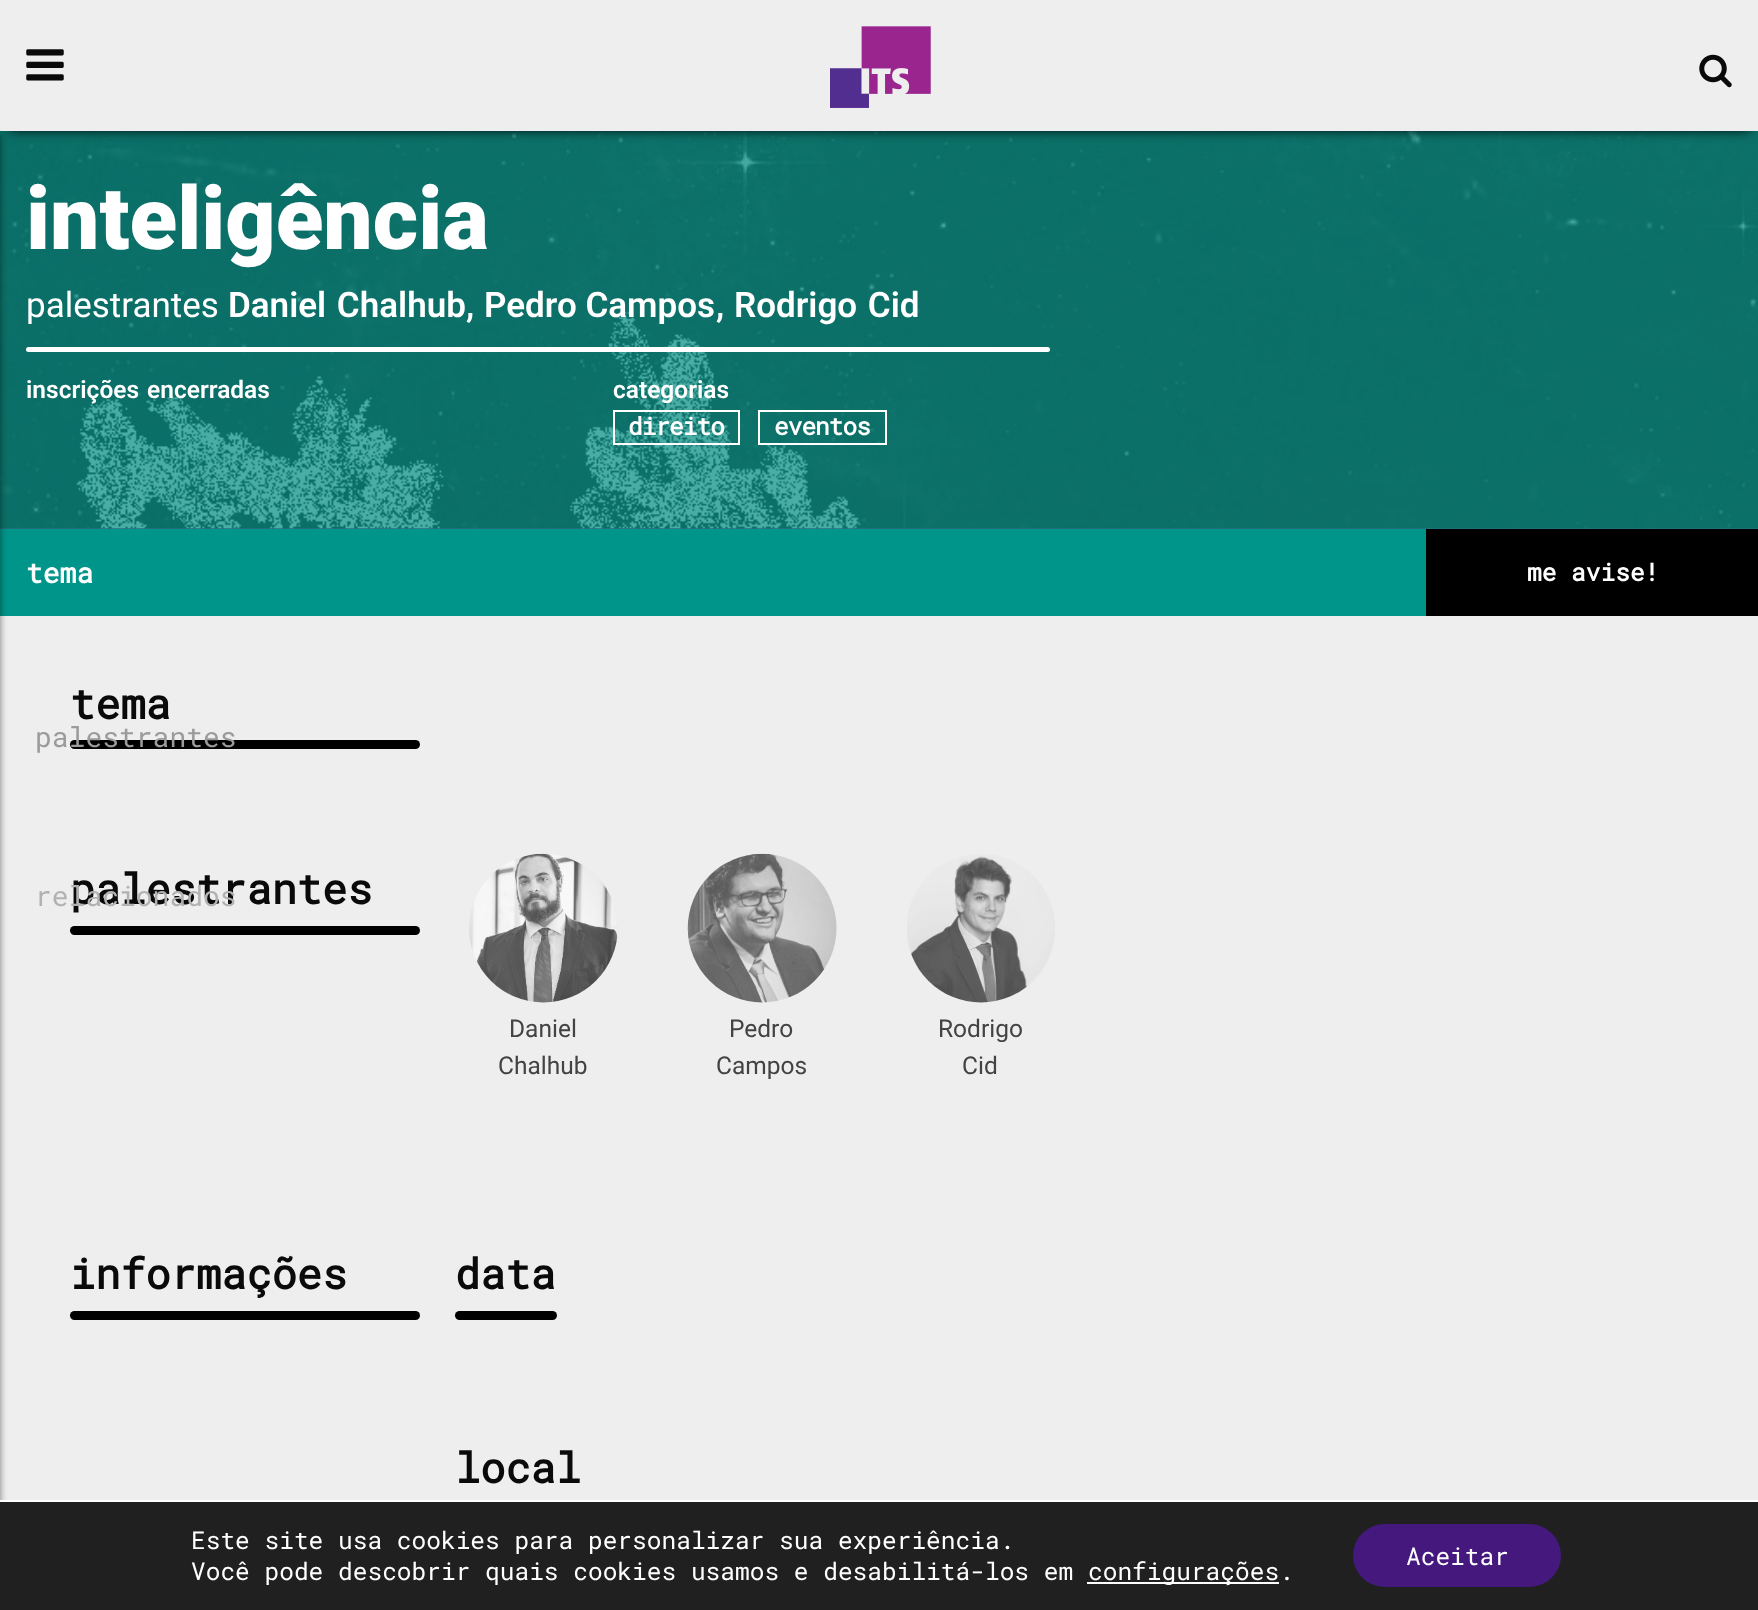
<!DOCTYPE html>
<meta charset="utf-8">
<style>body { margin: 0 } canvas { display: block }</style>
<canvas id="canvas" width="1758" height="1610"></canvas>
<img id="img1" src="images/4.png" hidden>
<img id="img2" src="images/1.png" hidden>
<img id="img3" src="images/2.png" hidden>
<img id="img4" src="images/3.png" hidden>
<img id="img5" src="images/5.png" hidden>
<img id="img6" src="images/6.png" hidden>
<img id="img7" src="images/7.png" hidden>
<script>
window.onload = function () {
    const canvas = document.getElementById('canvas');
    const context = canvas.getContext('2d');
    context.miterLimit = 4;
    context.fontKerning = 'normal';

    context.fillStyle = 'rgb(238, 238, 238)';
    context.fillRect(0, 0, 1758, 1610);
    context.fillStyle = 'rgb(39, 111, 132)';
    context.fillRect(0, 528, 1758, 1);
    context.drawImage(document.getElementById('img1'), 0, 131, 1758, 398);
    context.fillStyle = 'rgb(0, 0, 0)';
    context.filter = 'blur(6px)';
    context.beginPath();
    context.rect(9, 16, 1741, 114);
    context.fill();
    context.filter = 'none';
    context.fillStyle = 'rgb(238, 238, 238)';
    context.fillRect(0, 2, 1758, 129);
    context.drawImage(document.getElementById('img2'), 26, 49, 38, 32);
    context.drawImage(document.getElementById('img3'), 830, 26, 101, 82);
    context.drawImage(document.getElementById('img4'), 1699, 54, 33, 34);
    context.fillStyle = 'rgb(0, 149, 138)';
    context.fillRect(0, 529, 1426, 87);
    context.fillStyle = 'rgba(0, 0, 0, 0.5)';
    context.filter = 'blur(3.5px)';
    context.beginPath();
    context.rect(-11, 135, 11, 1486);
    context.fill();
    context.filter = 'none';
    context.fillStyle = 'rgb(255, 255, 255)';
    context.beginPath();
    context.roundRect(26, 347, 1024, 5, 2.5);
    context.fill();
    context.strokeStyle = 'rgb(255, 255, 255)';
    context.lineWidth = 2;
    context.strokeRect(614, 411, 125, 33);
    context.strokeRect(759, 411, 127, 33);
    context.fillStyle = 'rgb(0, 0, 0)';
    context.fillRect(1426, 529, 332, 87);
    context.beginPath();
    context.roundRect(70, 740, 350, 9, 4.5);
    context.fill();
    context.beginPath();
    context.roundRect(70, 926, 350, 9, 4.5);
    context.fill();
    context.drawImage(document.getElementById('img5'), 469, 853, 149, 150);
    context.drawImage(document.getElementById('img6'), 687, 853, 150, 150);
    context.drawImage(document.getElementById('img7'), 907, 854, 148, 149);
    context.beginPath();
    context.roundRect(70, 1311, 350, 9, 4.5);
    context.fill();
    context.beginPath();
    context.roundRect(455, 1311, 102, 9, 4.5);
    context.fill();
    context.fillStyle = 'rgb(32, 32, 32)';
    context.fillRect(0, 1502, 1758, 108);
    context.fillStyle = 'rgb(255, 255, 255)';
    context.fillRect(0, 1500, 1758, 2);
    context.fillRect(1087, 1582, 192, 2);
    context.fillStyle = 'rgb(69, 24, 125)';
    context.beginPath();
    context.roundRect(1353, 1524, 208, 63, 31.5);
    context.fill();
    context.font = '900 87.5px Roboto';
    context.fillStyle = 'rgb(255, 255, 255)';
    context.fillText('inteligência', 26, 249);
    context.font = '35px Roboto';
    context.fillText('palestrantes', 26, 317);
    context.wordSpacing = '2px';
    context.font = '600 35px Roboto';
    context.fillText('Daniel Chalhub', 228, 317);
    context.wordSpacing = '0px';
    context.fillText(',', 466, 317);
    context.fillText('Pedro Campos', 484, 317);
    context.fillText(',', 716, 317);
    context.wordSpacing = '2px';
    context.fillText('Rodrigo Cid', 734, 317);
    context.font = '600 24.5px Roboto';
    context.fillText('inscrições encerradas', 26, 398);
    context.wordSpacing = '0px';
    context.fillText('categorias', 613, 398);
    context.letterSpacing = '-1px';
    context.font = 'bold 24.5px Roboto Mono';
    context.fillText('direito', 628, 435);
    context.fillText('eventos', 774, 435);
    context.letterSpacing = '0px';
    context.font = 'bold 28px Roboto Mono';
    context.fillText('tema', 26, 583);
    context.font = '28px Roboto Mono';
    context.fillStyle = 'rgb(155, 155, 155)';
    context.fillText('palestrantes', 35, 747);
    context.font = 'bold 24.5px Roboto Mono';
    context.fillStyle = 'rgb(255, 255, 255)';
    context.fillText('me avise!', 1527, 581);
    context.font = 'bold 42px Roboto Mono';
    context.fillStyle = 'rgb(10, 10, 10)';
    context.fillText('tema', 70, 719);
    context.fillText('palestrantes', 70, 904);
    context.font = '28px Roboto Mono';
    context.fillStyle = 'rgb(178, 178, 178)';
    context.fillText('relacionados', 35, 906);
    context.font = '24.5px Roboto';
    context.fillStyle = 'rgb(67, 67, 67)';
    context.fillText('Daniel', 509, 1037);
    context.fillText('Chalhub', 498, 1074);
    context.fillText('Pedro', 729, 1037);
    context.fillText('Campos', 716, 1074);
    context.fillText('Rodrigo', 938, 1037);
    context.fillText('Cid', 962, 1074);
    context.font = 'bold 42px Roboto Mono';
    context.fillStyle = 'rgb(10, 10, 10)';
    context.fillText('informações', 70, 1289);
    context.fillText('data', 455, 1289);
    context.fillText('local', 455, 1483);
    context.font = '24.5px Roboto Mono';
    context.fillStyle = 'rgb(255, 255, 255)';
    context.fillText('Este site usa cookies para personalizar sua experiência.', 191, 1549);
    context.fillText('Você pode descobrir quais cookies usamos e desabilitá-los em', 191, 1580);
    context.fillText('configurações.', 1088, 1580);
    context.fillText('Aceitar', 1406, 1565);
};
</script>
